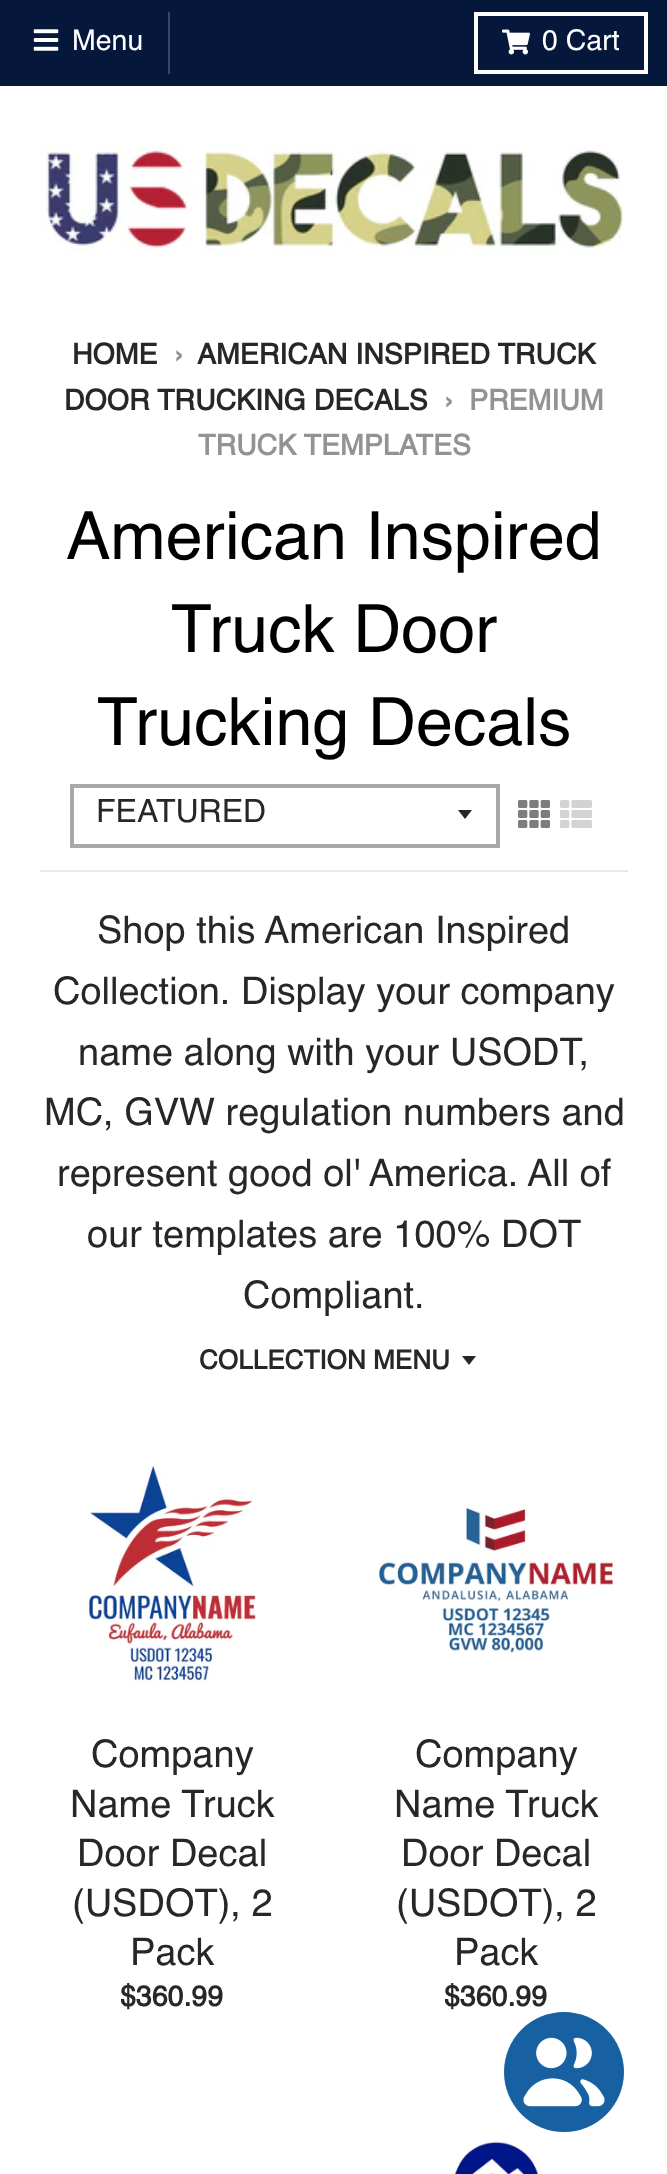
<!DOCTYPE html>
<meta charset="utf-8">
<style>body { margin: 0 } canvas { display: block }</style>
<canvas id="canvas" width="667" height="2174"></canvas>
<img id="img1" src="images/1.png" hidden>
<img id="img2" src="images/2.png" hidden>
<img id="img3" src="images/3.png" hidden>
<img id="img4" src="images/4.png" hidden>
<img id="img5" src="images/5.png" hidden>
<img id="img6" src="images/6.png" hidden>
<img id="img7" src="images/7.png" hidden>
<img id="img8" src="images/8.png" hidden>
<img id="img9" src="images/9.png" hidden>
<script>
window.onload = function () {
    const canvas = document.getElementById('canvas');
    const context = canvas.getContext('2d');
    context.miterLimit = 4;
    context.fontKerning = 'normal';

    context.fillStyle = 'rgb(255, 255, 255)';
    context.fillRect(0, 0, 667, 2174);
    context.fillStyle = 'rgb(5, 24, 60)';
    context.fillRect(0, 0, 667, 86);
    context.fillStyle = 'rgb(55, 70, 99)';
    context.fillRect(168, 12, 2, 62);
    context.drawImage(document.getElementById('img1'), 33, 29, 26, 22);
    context.strokeStyle = 'rgb(255, 255, 255)';
    context.lineWidth = 4;
    context.strokeRect(476, 14, 170, 58);
    context.drawImage(document.getElementById('img2'), 502, 29, 28, 26);
    context.drawImage(document.getElementById('img3'), 40, 146, 583, 107);
    context.fillStyle = 'rgb(233, 233, 233)';
    context.fillRect(40, 870, 588, 2);
    context.fillStyle = 'rgb(40, 39, 39)';
    context.beginPath();
    context.moveTo(458, 810);
    context.lineTo(465, 819);
    context.lineTo(472, 810);
    context.closePath();
    context.fill();
    context.strokeStyle = 'rgb(169, 168, 168)';
    context.strokeRect(72, 786, 426, 60);
    context.drawImage(document.getElementById('img4'), 518, 800, 32, 28);
    context.drawImage(document.getElementById('img5'), 560, 800, 32, 28);
    context.beginPath();
    context.moveTo(462, 1356);
    context.lineTo(469, 1365);
    context.lineTo(476, 1356);
    context.closePath();
    context.fill();
    context.drawImage(document.getElementById('img6'), 87, 1465, 169, 219);
    context.drawImage(document.getElementById('img7'), 378, 1507, 237, 151);
    context.drawImage(document.getElementById('img8'), 453, 2141, 86, 33);
    context.fillStyle = 'rgb(23, 97, 162)';
    context.beginPath();
    context.arc(564, 2072, 60, 0, 2 * Math.PI);
    context.fill();
    context.drawImage(document.getElementById('img9'), 523, 2037, 82, 70);
    context.font = '28.5px Helvetica';
    context.fillStyle = 'rgb(255, 255, 255)';
    context.fillText('Menu', 72, 50);
    context.fillText('0 Cart', 542, 50);
    context.font = 'bold 28.5px Helvetica';
    context.fillStyle = 'rgb(40, 39, 39)';
    context.fillText('HOME', 72, 364);
    context.fillStyle = 'rgb(147, 147, 147)';
    context.fillText('›', 174, 364);
    context.fillStyle = 'rgb(40, 39, 39)';
    context.fillText('AMERICAN INSPIRED TRUCK', 197, 364);
    context.fillText('DOOR TRUCKING DECALS', 64, 410);
    context.fillStyle = 'rgb(147, 147, 147)';
    context.fillText('›', 444, 410);
    context.fillText('PREMIUM', 469, 410);
    context.fillText('TRUCK TEMPLATES', 198, 455);
    context.font = '66.5px Helvetica';
    context.fillStyle = 'rgb(0, 0, 0)';
    context.fillText('American Inspired', 66, 559);
    context.fillText('Truck Door', 171, 652);
    context.fillText('Trucking Decals', 97, 745);
    context.font = '32px Helvetica';
    context.fillStyle = 'rgb(40, 39, 39)';
    context.fillText('FEATURED', 96, 822);
    context.font = '38px Helvetica';
    context.fillText('Shop this American Inspired', 97, 943);
    context.fillText('Collection. Display your company', 53, 1004);
    context.fillText('name along with your USODT,', 78, 1065);
    context.fillText('MC, GVW regulation numbers and', 44, 1125);
    context.fillText('represent good ol\' America. All of', 57, 1186);
    context.fillText('our templates are 100% DOT', 87, 1247);
    context.fillText('Compliant.', 243, 1308);
    context.font = 'bold 26.1px Helvetica';
    context.fillText('COLLECTION MENU', 199, 1369);
    context.font = '38px Helvetica';
    context.fillText('Company', 91, 1767);
    context.fillText('Name Truck', 70, 1817);
    context.fillText('Door Decal', 77, 1866);
    context.fillText('(USDOT), 2', 72, 1916);
    context.fillText('Pack', 130, 1965);
    context.font = 'bold 28.5px Helvetica';
    context.fillText('$360.99', 120, 2006);
    context.font = '38px Helvetica';
    context.fillText('Company', 415, 1767);
    context.fillText('Name Truck', 394, 1817);
    context.fillText('Door Decal', 401, 1866);
    context.fillText('(USDOT), 2', 396, 1916);
    context.fillText('Pack', 454, 1965);
    context.font = 'bold 28.5px Helvetica';
    context.fillText('$360.99', 444, 2006);
};
</script>
